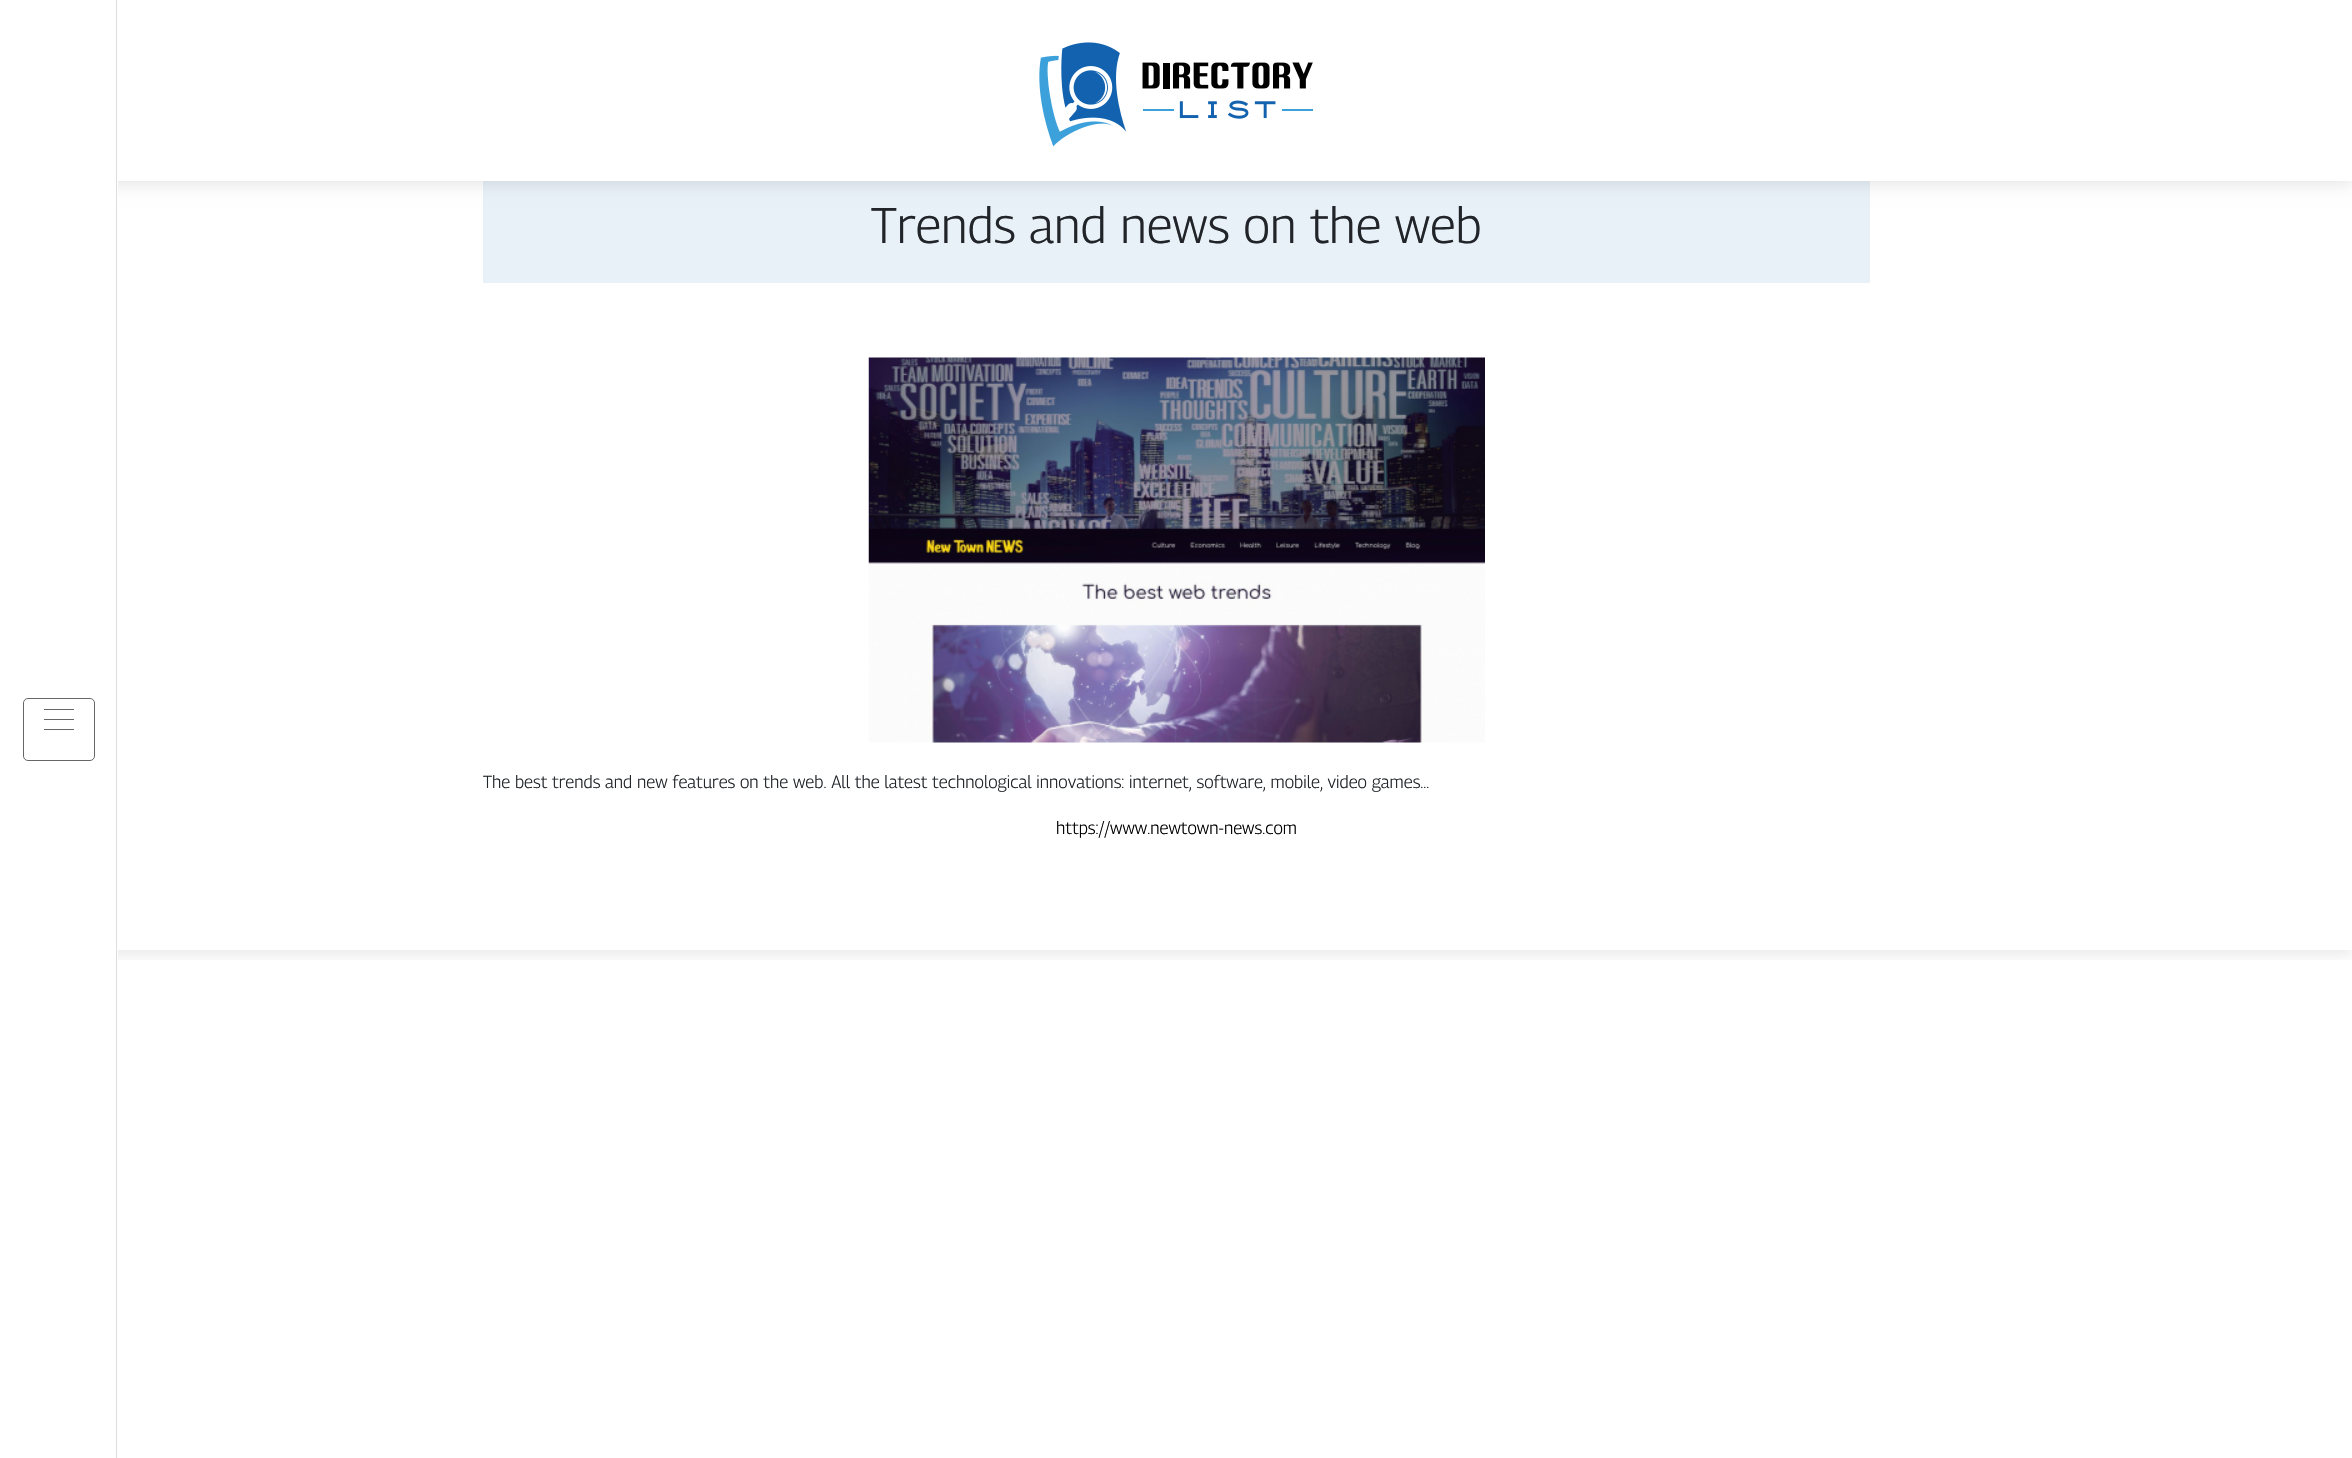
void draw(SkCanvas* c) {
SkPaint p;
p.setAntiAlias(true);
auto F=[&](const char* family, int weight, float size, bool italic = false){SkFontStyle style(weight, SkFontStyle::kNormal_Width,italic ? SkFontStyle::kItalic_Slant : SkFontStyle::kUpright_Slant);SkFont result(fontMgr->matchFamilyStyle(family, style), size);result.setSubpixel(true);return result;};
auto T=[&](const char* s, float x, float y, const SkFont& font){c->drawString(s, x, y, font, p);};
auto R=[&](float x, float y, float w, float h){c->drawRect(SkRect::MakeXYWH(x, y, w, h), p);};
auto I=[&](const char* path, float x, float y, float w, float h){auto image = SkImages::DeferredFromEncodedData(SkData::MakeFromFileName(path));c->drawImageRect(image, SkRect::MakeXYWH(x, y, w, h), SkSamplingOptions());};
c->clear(0xffffffff);
c->save();
c->clipRect(SkRect::MakeXYWH(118,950,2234,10));
p.setColor(0x1a000000);
p.setMaskFilter(SkMaskFilter::MakeBlur(kNormal_SkBlurStyle, 8));
c->drawRect(SkRect::MakeXYWH(0,153,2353,800),p);
p.setMaskFilter(nullptr);
c->restore();
p.setColor(0xffe8f0f8);
R(483,181,1387,102);
p.setColor(0x1a000000);
p.setMaskFilter(SkMaskFilter::MakeBlur(kNormal_SkBlurStyle, 8));
c->drawRect(SkRect::MakeXYWH(0,3,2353,181),p);
p.setMaskFilter(nullptr);
p.setColor(0xffffffff);
R(118,0,2234,181);
R(0,0,118,963);
p.setColor(0xffdddddd);
R(116,0,1,1458);
p.setStroke(true);
p.setStrokeWidth(1);
p.setColor(0xff666666);
c->drawRoundRect(SkRect::MakeXYWH(23.5,698.5,71,62),4.5,4.5,p);
p.setStroke(false);
R(44,709,30,1);
R(44,719,30,1);
R(44,729,30,1);
I("1.png",1039,42,274,105);
auto f1 = F("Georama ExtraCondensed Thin",100,50);
p.setColor(0xff212529);
T("Trends and news on the web",871,243,f1);
I("2.png",868,357,617,386);
auto f2 = F("Georama ExtraCondensed Thin",100,17.5);
T("The best trends and new features on the web. All the latest technological innovations: internet, software, mobile, video games...",483,788,f2);
p.setColor(0xff000000);
T("https://www.newtown-news.com",1056,834,f2);
}
